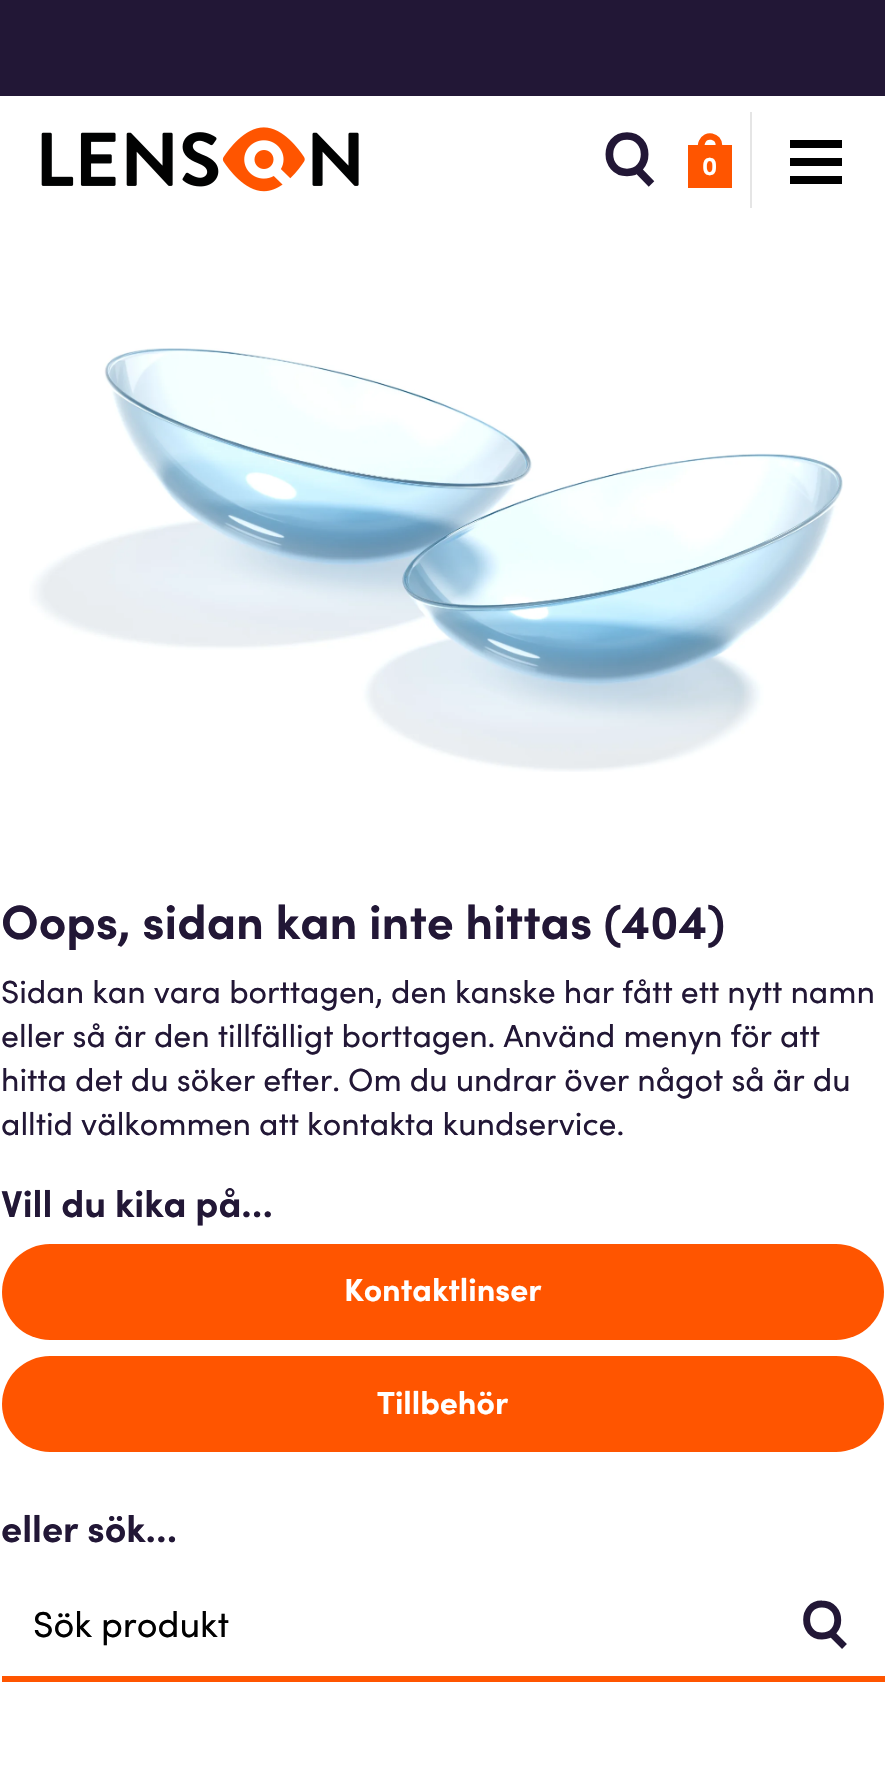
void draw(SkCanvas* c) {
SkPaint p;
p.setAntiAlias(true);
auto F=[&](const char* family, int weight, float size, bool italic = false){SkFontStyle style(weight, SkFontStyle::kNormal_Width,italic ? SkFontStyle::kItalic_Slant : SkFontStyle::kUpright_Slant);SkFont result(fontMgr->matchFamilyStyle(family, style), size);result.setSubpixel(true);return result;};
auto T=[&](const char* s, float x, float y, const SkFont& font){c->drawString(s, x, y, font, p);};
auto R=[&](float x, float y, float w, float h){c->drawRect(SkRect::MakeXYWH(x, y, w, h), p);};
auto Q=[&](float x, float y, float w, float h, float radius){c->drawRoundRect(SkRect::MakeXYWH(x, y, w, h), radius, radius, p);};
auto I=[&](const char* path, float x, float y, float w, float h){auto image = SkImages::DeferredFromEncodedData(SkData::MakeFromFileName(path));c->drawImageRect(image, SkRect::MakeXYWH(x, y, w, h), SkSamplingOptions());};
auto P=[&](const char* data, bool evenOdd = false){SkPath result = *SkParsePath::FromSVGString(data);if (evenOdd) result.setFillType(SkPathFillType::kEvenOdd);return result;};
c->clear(0xffffffff);
p.setColor(0xff221736);
R(0,0,885,96);
I("1.png",41,127,318,65);
p.setStroke(true);
p.setStrokeWidth(7.7);
c->drawPath(P("M627 172.5c-23.5 0-23.5-36.5 0-36.5c23.5 0 23.5 36.5 0 36.5zm9.5-4l15 15.5"),p);
p.setStrokeWidth(6.6);
p.setColor(0xffff5500);
c->drawPath(P("M719 145.5c0-10-13.5-12.5-17-3.5c-1.5 3-1 6.5-1 9.5h18z"),p);
p.setStroke(false);
R(688,145,44,43);
auto f1 = F("Sofia",700,26);
p.setColor(0xffffffff);
T("0",702,175,f1);
p.setColor(0xffe5e5e5);
R(750,112,2,96);
p.setColor(0xff000000);
R(790,140,52,8);
R(790,158,52,8);
R(790,176,52,8);
I("2.png",29,348,814,424);
auto f2 = F("Sofia",700,48);
p.setColor(0xff221736);
T("Oops, sidan kan inte hittas (404)",1,939,f2);
auto f3 = F("Sofia",400,32);
T("Sidan kan vara borttagen, den kanske har fått ett nytt namn",1,1003,f3);
T("eller så är den tillfälligt borttagen. Använd menyn för att",1,1047,f3);
T("hitta det du söker efter. Om du undrar över något så är du",1,1091,f3);
T("alltid välkommen att kontakta kundservice.",1,1135,f3);
auto f4 = F("Sofia",700,37.5);
T("Vill du kika på…",1,1217,f4);
p.setColor(0xffff5500);
Q(2,1244,882,96,48);
auto f5 = F("Sofia",700,32);
p.setColor(0xffffffff);
T("Kontaktlinser",344,1301,f5);
p.setColor(0xffff5500);
Q(2,1356,882,96,48);
p.setColor(0xffffffff);
T("Tillbehör",377,1414,f5);
p.setColor(0xff221736);
T("eller sök…",1,1542,f4);
p.setColor(0xffff5500);
R(2,1676,883,6);
auto f6 = F("Sofia",400,36);
p.setColor(0xff000000);
T("Sök produkt",33,1637,f6);
p.setStroke(true);
p.setStrokeWidth(6.9);
p.setColor(0xff221736);
c->drawPath(P("M822 1636c-20.5 0-20.5-32.5 0-32c21 0 21 32 0 32zm9-3l13.5 13.5"),p);
}
